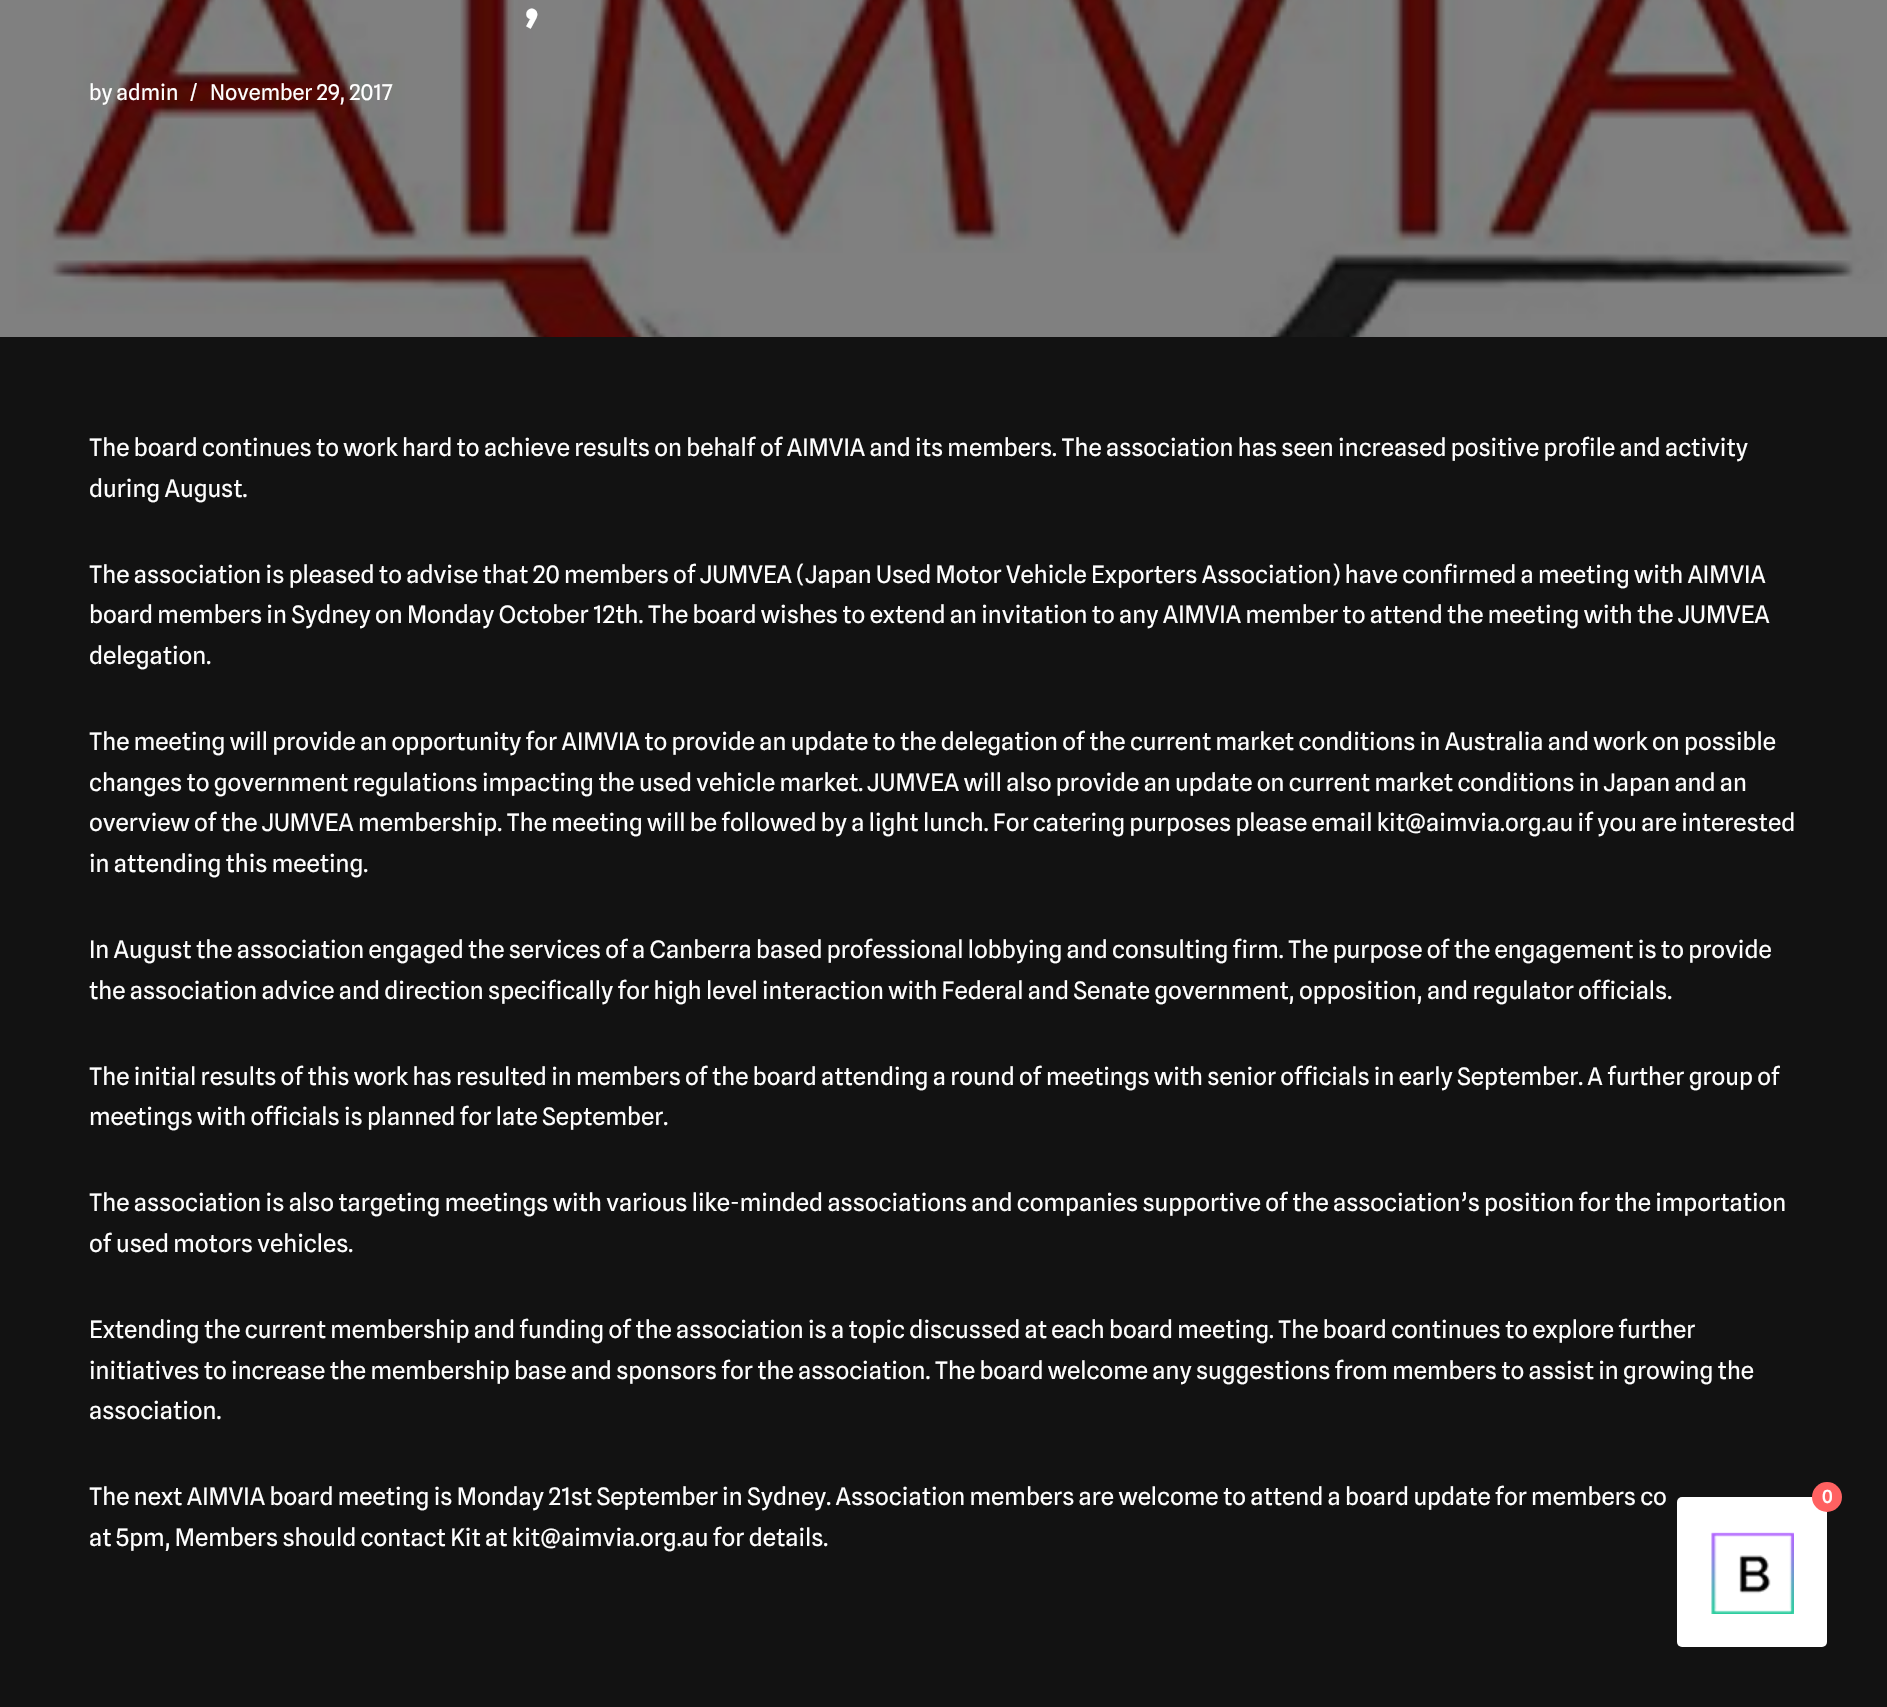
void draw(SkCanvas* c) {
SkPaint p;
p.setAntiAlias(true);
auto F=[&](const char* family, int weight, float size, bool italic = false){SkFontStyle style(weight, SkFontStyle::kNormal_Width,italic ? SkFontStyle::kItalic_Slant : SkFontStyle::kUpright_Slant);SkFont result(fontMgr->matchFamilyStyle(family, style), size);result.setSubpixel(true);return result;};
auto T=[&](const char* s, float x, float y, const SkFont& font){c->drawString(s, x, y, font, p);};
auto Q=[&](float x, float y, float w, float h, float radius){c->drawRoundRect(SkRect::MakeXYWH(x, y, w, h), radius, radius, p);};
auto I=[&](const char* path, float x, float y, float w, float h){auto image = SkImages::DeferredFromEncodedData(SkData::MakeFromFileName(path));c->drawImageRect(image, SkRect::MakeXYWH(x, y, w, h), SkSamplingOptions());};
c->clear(0xff121212);
I("1.png",0,0,1887,337);
auto f1 = F("Outfit",700,60);
p.setColor(0xffffffff);
T(",",523,19,f1);
auto f2 = F("Spline Sans",400,21.5);
T("by admin",89,100,f2);
T("/",190,100,f2);
T("November 29, 2017",210,100,f2);
auto f3 = F("Spline Sans",400,24);
T("The board continues to work hard to achieve results on behalf of AIMVIA and its members. The association has seen increased positive profile and activity",89,456,f3);
T("during August.",89,497,f3);
T("The association is pleased to advise that 20 members of JUMVEA (Japan Used Motor Vehicle Exporters Association) have confirmed a meeting with AIMVIA",89,583,f3);
T("board members in Sydney on Monday October 12th. The board wishes to extend an invitation to any AIMVIA member to attend the meeting with the JUMVEA",89,623,f3);
T("delegation.",89,664,f3);
T("The meeting will provide an opportunity for AIMVIA to provide an update to the delegation of the current market conditions in Australia and work on possible",89,750,f3);
T("changes to government regulations impacting the used vehicle market. JUMVEA will also provide an update on current market conditions in Japan and an",89,791,f3);
T("overview of the JUMVEA membership. The meeting will be followed by a light lunch. For catering purposes please email kit@aimvia.org.au if you are interested",89,831,f3);
T("in attending this meeting.",89,872,f3);
T("In August the association engaged the services of a Canberra based professional lobbying and consulting firm. The purpose of the engagement is to provide",89,958,f3);
T("the association advice and direction specifically for high level interaction with Federal and Senate government, opposition, and regulator officials.",89,999,f3);
T("The initial results of this work has resulted in members of the board attending a round of meetings with senior officials in early September. A further group of",89,1085,f3);
T("meetings with officials is planned for late September.",89,1125,f3);
T("The association is also targeting meetings with various like-minded associations and companies supportive of the association’s position for the importation",89,1211,f3);
T("of used motors vehicles.",89,1252,f3);
T("Extending the current membership and funding of the association is a topic discussed at each board meeting. The board continues to explore further",89,1338,f3);
T("initiatives to increase the membership base and sponsors for the association. The board welcome any suggestions from members to assist in growing the",89,1379,f3);
T("association.",89,1419,f3);
T("The next AIMVIA board meeting is Monday 21st September in Sydney. Association members are welcome to attend a board update for members co",89,1505,f3);
T("at 5pm, Members should contact Kit at kit@aimvia.org.au for details.",89,1546,f3);
Q(1677,1497,150,150,5);
p.setColor(0xffff6161);
c->drawCircle(1827,1497,15,p);
auto f4 = F("Spline Sans",500,18);
p.setColor(0xffffffff);
T("0",1822,1503,f4);
I("2.png",1711,1532,83,82);
}
